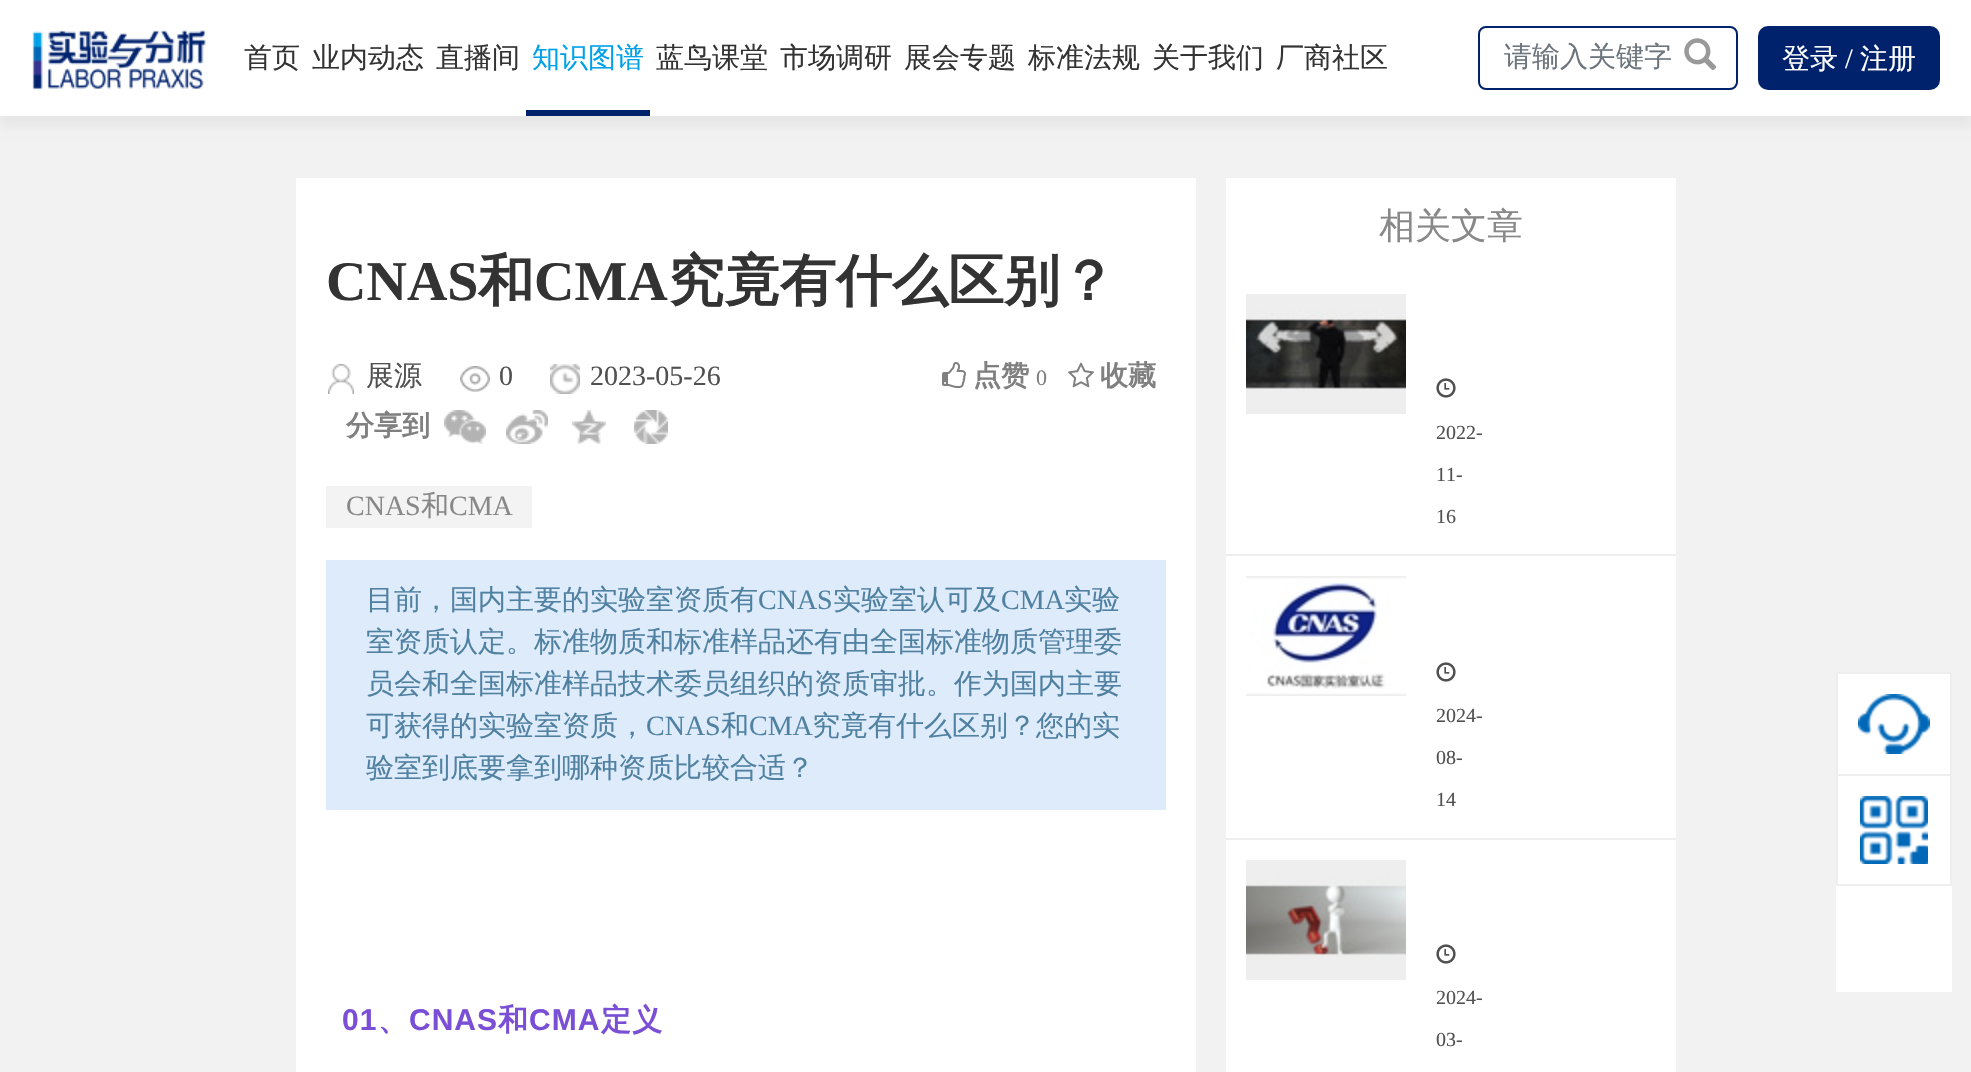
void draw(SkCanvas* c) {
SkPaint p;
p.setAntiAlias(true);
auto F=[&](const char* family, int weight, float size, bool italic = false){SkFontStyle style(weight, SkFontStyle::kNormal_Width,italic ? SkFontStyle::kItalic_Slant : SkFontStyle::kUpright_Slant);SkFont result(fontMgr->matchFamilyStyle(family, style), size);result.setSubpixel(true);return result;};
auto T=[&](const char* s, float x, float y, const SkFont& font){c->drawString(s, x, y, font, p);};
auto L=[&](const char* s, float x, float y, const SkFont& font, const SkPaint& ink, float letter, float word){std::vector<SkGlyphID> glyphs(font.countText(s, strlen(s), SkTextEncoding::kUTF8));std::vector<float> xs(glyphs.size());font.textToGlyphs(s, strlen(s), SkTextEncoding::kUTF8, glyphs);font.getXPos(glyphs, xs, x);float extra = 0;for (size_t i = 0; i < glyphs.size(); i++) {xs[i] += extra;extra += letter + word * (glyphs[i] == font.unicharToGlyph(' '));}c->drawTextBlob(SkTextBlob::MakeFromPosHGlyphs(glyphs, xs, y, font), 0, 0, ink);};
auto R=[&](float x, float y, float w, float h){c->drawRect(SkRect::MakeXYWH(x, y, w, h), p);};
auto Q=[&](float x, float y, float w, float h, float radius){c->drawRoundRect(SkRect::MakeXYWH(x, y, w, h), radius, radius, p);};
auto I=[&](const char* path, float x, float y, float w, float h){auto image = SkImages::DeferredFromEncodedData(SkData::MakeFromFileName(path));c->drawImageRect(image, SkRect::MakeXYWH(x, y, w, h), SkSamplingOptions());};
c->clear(0xfff2f2f2);
p.setColor(0x0d000000);
p.setMaskFilter(SkMaskFilter::MakeBlur(kNormal_SkBlurStyle, 5));
c->drawRect(SkRect::MakeXYWH(0,10,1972,116),p);
p.setMaskFilter(nullptr);
p.setColor(0xffffffff);
R(0,0,1971,116);
I("1.png",32,30,174,60);
auto f1 = F("WenQuanYi Zen Hei",500,28);
p.setColor(0xff333333);
T("首页",244,67,f1);
T("业内动态",312,67,f1);
T("直播间",436,67,f1);
p.setColor(0xff00226d);
R(526,110,124,6);
p.setColor(0xff00a1e9);
T("知识图谱",532,67,f1);
p.setColor(0xff333333);
T("蓝鸟课堂",656,67,f1);
T("市场调研",780,67,f1);
T("展会专题",904,67,f1);
T("标准法规",1028,67,f1);
T("关于我们",1152,67,f1);
T("厂商社区",1276,67,f1);
p.setStroke(true);
p.setStrokeWidth(2);
p.setColor(0xff00226d);
c->drawRoundRect(SkRect::MakeXYWH(1479,27,258,62),7,7,p);
p.setStroke(false);
p.setColor(0xff6c757d);
T("请输入关键字",1504,66,f1);
I("2.png",1684,38,33,33);
p.setColor(0xff00226d);
Q(1758,26,182,64,10);
p.setColor(0xffffffff);
T("登录",1782,68,f1);
auto f2 = F("Liberation Serif",400,28);
T("/",1845,68,f2);
T("注册",1860,68,f1);
R(296,178,900,894);
auto f3 = F("Liberation Serif",700,56);
p.setColor(0xff333333);
T("CNAS",326,300,f3);
auto f4 = F("WenQuanYi Zen Hei",700,56);
T("和",478,300,f4);
T("CMA",534,300,f3);
T("究竟有什么区别？",668,300,f4);
I("3.png",328,364,26,30);
p.setColor(0xff505050);
T("展源",366,385,f1);
I("4.png",460,366,30,26);
T("0",499,385,f2);
I("5.png",550,364,30,30);
T("2023-05-26",590,385,f2);
I("6.png",942,362,24,26);
auto f5 = F("WenQuanYi Zen Hei",700,28);
p.setColor(0xff808080);
T("点赞",973,385,f5);
auto f6 = F("Liberation Serif",400,22);
T("0",1036,385,f6);
I("7.png",1068,362,26,26);
T("收藏",1100,385,f5);
T("分享到",346,435,f5);
I("8.png",444,410,42,34);
I("9.png",506,410,42,34);
I("10.png",572,410,34,34);
I("11.png",634,410,34,34);
p.setColor(0xfff3f3f3);
R(326,486,206,42);
p.setColor(0xff888888);
T("CNAS",346,515,f2);
T("和",421,515,f1);
T("CMA",449,515,f2);
p.setColor(0xffddebfb);
R(326,560,840,250);
p.setColor(0xff5081a1);
T("目前，国内主要的实验室资质有",366,609,f1);
T("CNAS",758,609,f2);
T("实验室认可及",833,609,f1);
T("CMA",1001,609,f2);
T("实验",1064,609,f1);
T("室资质认定。标准物质和标准样品还有由全国标准物质管理委",366,651,f1);
T("员会和全国标准样品技术委员组织的资质审批。作为国内主要",366,693,f1);
T("可获得的实验室资质，",366,735,f1);
T("CNAS",646,735,f2);
T("和",721,735,f1);
T("CMA",749,735,f2);
T("究竟有什么区别？您的实",812,735,f1);
T("验室到底要拿到哪种资质比较合适？",366,777,f1);
auto f7 = F("Liberation Sans",700,30);
p.setColor(0xff7a4fd6);
L("01",342,1030,f7,p,1,0);
auto f8 = F("WenQuanYi Zen Hei",700,30);
L("、",378,1030,f8,p,1,0);
L("CNAS",409,1030,f7,p,1,0);
L("和",498,1030,f8,p,1,0);
L("CMA",529,1030,f7,p,1,0);
L("定义",601,1030,f8,p,1,0);
p.setColor(0xffffffff);
R(1226,178,450,894);
auto f9 = F("WenQuanYi Zen Hei",500,36);
p.setColor(0xff888888);
T("相关文章",1379,238,f9);
I("12.png",1246,294,160,120);
I("13.png",1436,378,20,20);
auto f10 = F("Liberation Serif",400,20);
p.setColor(0xff505050);
T("2022-",1436,439,f10);
T("11-",1436,481,f10);
T("16",1436,523,f10);
p.setColor(0xffeeeeee);
R(1226,554,450,2);
I("14.png",1246,576,160,120);
I("13.png",1436,662,20,20);
p.setColor(0xff505050);
T("2024-",1436,722,f10);
T("08-",1436,764,f10);
T("14",1436,806,f10);
p.setColor(0xffeeeeee);
R(1226,838,450,2);
I("15.png",1246,860,160,120);
I("13.png",1436,944,20,20);
p.setColor(0xff505050);
T("2024-",1436,1004,f10);
T("03-",1436,1046,f10);
p.setColor(0xffffffff);
R(1836,886,116,106);
c->drawRect(SkRect::MakeXYWH(1837,673,114,102),p);
p.setStroke(true);
p.setColor(0xffeeeeee);
c->drawRect(SkRect::MakeXYWH(1837,673,114,102),p);
I("16.png",1858,694,72,60);
p.setStroke(false);
p.setColor(0xffffffff);
c->drawRect(SkRect::MakeXYWH(1837,775,114,110),p);
p.setStroke(true);
p.setColor(0xffeeeeee);
c->drawRect(SkRect::MakeXYWH(1837,775,114,110),p);
I("17.png",1860,796,68,68);
}
